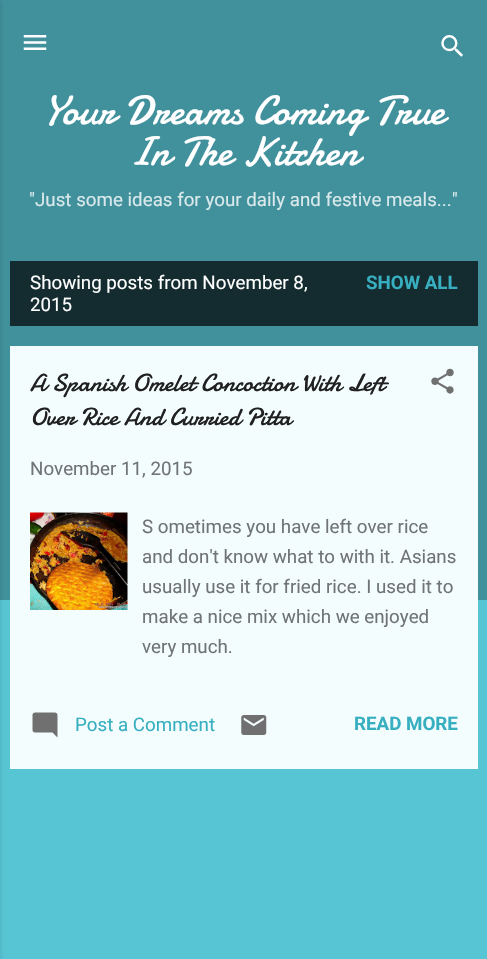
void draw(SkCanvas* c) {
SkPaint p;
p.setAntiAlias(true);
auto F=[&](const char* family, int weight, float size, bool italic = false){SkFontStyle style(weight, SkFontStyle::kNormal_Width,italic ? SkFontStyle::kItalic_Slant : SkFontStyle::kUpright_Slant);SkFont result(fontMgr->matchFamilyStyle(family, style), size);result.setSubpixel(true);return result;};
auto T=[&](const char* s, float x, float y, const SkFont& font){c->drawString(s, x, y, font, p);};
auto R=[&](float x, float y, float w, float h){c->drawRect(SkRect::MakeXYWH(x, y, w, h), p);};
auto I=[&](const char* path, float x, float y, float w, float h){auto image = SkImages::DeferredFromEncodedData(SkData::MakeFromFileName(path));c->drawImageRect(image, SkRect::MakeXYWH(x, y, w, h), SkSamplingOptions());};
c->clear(0xff58c5d5);
p.setColor(0xff41919d);
R(0,0,487,600);
p.setColor(0x1a000000);
p.setMaskFilter(SkMaskFilter::MakeBlur(kNormal_SkBlurStyle, 2));
c->drawRect(SkRect::MakeXYWH(-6,1,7,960),p);
p.setMaskFilter(nullptr);
I("1.png",23,35,24,15);
I("2.png",441,35,22,22);
auto f1 = F("Damion",400,41.25);
p.setColor(0xffffffff);
T("Your Dreams Coming True",43,124,f1);
T("In The Kitchen",129,165,f1);
auto f2 = F("Roboto",400,18.75);
p.setColor(0xffd9e9eb);
T("\"Just some ideas for your daily and festive meals...\"",29,206,f2);
p.setColor(0xff142c2f);
R(10,261,468,65);
p.setColor(0xffffffff);
T("Showing posts from November 8,",30,289,f2);
T("2015",30,311,f2);
auto f3 = F("Roboto",700,18.75);
p.setColor(0xff37afc0);
T("SHOW ALL",366,289,f3);
p.setColor(0xfff3fdfe);
R(10,346,468,423);
auto f4 = F("Damion",400,25);
p.setColor(0xff212121);
T("A Spanish Omelet Concoction With Left",30,391,f4);
T("Over Rice And Curried Pitta",30,425,f4);
I("3.png",431,368,23,26);
p.setColor(0xff707475);
T("November 11, 2015",30,475,f2);
I("4.png",30,512,98,98);
T("S ometimes you have left over rice",142,533,f2);
T("and don't know what to with it. Asians",142,563,f2);
T("usually use it for fried rice. I used it to",142,593,f2);
T("make a nice mix which we enjoyed",142,623,f2);
T("very much.",142,653,f2);
I("5.png",32,712,26,26);
p.setColor(0xff37afc0);
T("Post a Comment",75,731,f2);
I("6.png",241,715,26,20);
T("READ MORE",354,730,f3);
}
